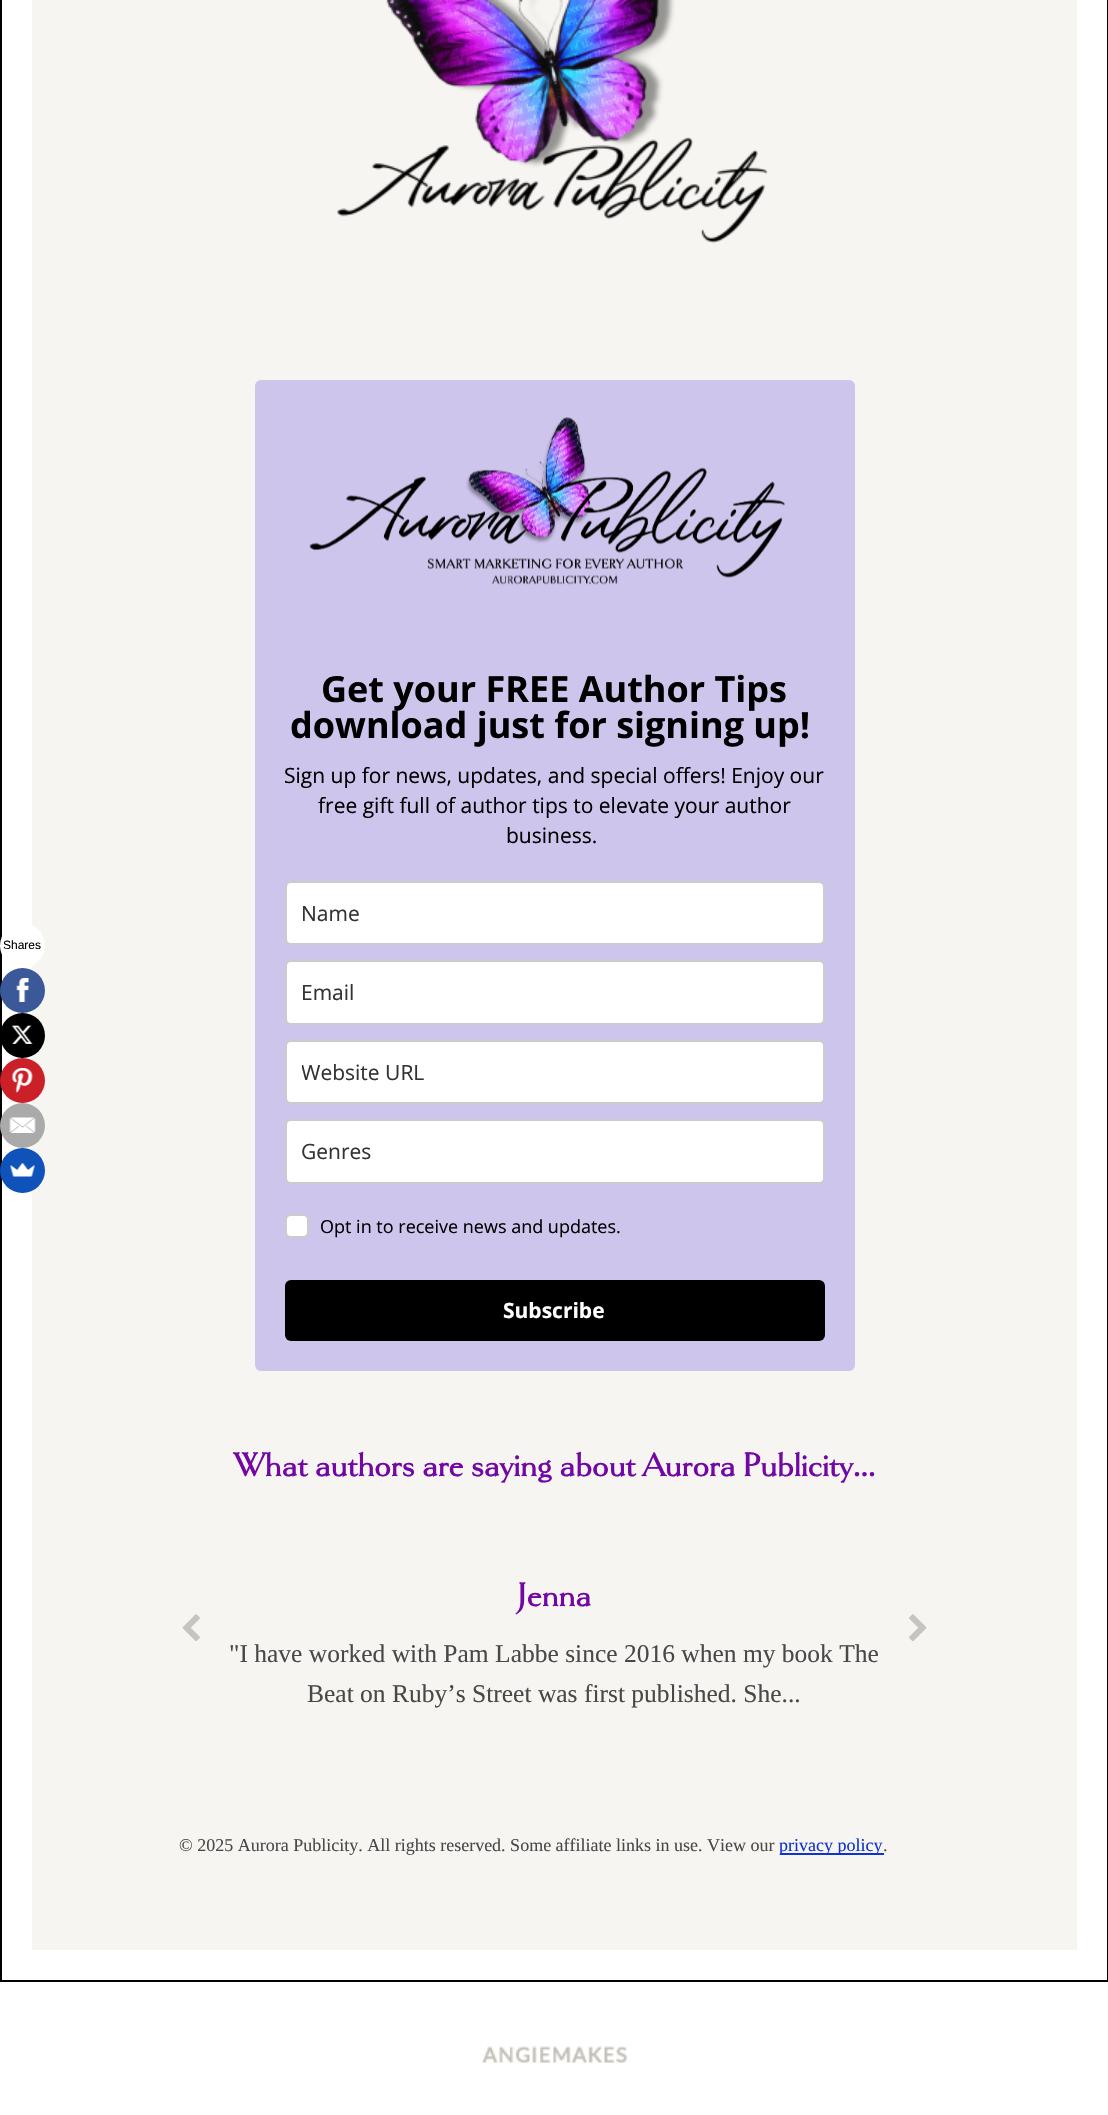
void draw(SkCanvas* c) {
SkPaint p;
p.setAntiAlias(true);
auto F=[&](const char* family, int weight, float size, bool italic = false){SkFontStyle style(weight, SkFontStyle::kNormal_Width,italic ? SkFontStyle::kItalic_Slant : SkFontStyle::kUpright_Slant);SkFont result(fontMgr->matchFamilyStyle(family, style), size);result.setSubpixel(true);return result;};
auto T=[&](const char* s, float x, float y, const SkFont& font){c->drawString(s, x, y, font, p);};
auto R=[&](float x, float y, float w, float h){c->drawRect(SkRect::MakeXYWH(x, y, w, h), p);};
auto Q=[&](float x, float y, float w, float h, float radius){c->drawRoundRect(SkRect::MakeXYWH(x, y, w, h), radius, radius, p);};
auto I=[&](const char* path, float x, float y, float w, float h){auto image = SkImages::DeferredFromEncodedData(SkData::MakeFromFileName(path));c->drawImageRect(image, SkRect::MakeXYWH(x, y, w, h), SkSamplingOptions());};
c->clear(0xffffffff);
p.setStroke(true);
p.setStrokeWidth(2);
p.setColor(0xff000000);
c->drawRect(SkRect::MakeXYWH(1,-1,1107,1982),p);
p.setStroke(false);
p.setColor(0xfff6f5f1);
R(32,0,1045,1950);
p.setColor(0xffffffff);
c->drawCircle(22.5,945.5,22.5,p);
auto f1 = F("Liberation Sans",400,12);
p.setColor(0xff000000);
T("Shares",3,949,f1);
p.setColor(0xff3b5998);
c->drawCircle(22.5,990.5,22.5,p);
I("1.png",16,978,13,24);
p.setColor(0xff000000);
c->drawCircle(22.5,1035.5,22.5,p);
I("2.png",11,1025,22,19);
p.setColor(0xffcb2027);
c->drawCircle(22.5,1080.5,22.5,p);
I("3.png",12,1068,21,25);
p.setColor(0xffaaaaaa);
c->drawCircle(22.5,1125.5,22.5,p);
I("4.png",9,1117,27,16);
p.setColor(0xff0f52ba);
c->drawCircle(22.5,1170.5,22.5,p);
I("5.png",10,1163,25,14);
I("6.png",337,0,431,244);
p.setColor(0xffcdc5ec);
Q(255,380,600,991,6);
I("7.png",309,417,476,168);
auto f2 = F("Open Sans",700,36);
p.setColor(0xff000000);
T("Get your FREE Author Tips",321,702,f2);
T("download just for signing up!",290,738,f2);
auto f3 = F("Open Sans",400,21);
T("Sign up for news, updates, and special offers! Enjoy our",284,783,f3);
T("free gift full of author tips to elevate your author",318,813,f3);
T("business.",506,843,f3);
p.setColor(0xffffffff);
c->drawRoundRect(SkRect::MakeXYWH(286,882,538,62),5,5,p);
p.setStroke(true);
p.setColor(0xffcccccc);
c->drawRoundRect(SkRect::MakeXYWH(286,882,538,62),5,5,p);
p.setStroke(false);
p.setColor(0xff333333);
T("Name",301,921,f3);
p.setColor(0xffffffff);
c->drawRoundRect(SkRect::MakeXYWH(286,961,538,63),5,5,p);
p.setStroke(true);
p.setColor(0xffcccccc);
c->drawRoundRect(SkRect::MakeXYWH(286,961,538,63),5,5,p);
p.setStroke(false);
p.setColor(0xff333333);
T("Email",301,1000,f3);
p.setColor(0xffffffff);
c->drawRoundRect(SkRect::MakeXYWH(286,1041,538,62),5,5,p);
p.setStroke(true);
p.setColor(0xffcccccc);
c->drawRoundRect(SkRect::MakeXYWH(286,1041,538,62),5,5,p);
c->save();
c->clipRect(SkRect::MakeXYWH(302,1058,507,28));
p.setStroke(false);
p.setColor(0xff333333);
T("Website URL",301,1080,f3);
c->restore();
p.setColor(0xffffffff);
c->drawRoundRect(SkRect::MakeXYWH(286,1120,538,63),5,5,p);
p.setStroke(true);
p.setColor(0xffcccccc);
c->drawRoundRect(SkRect::MakeXYWH(286,1120,538,63),5,5,p);
p.setStroke(false);
p.setColor(0xff333333);
T("Genres",301,1159,f3);
p.setColor(0xffffffff);
c->drawRoundRect(SkRect::MakeXYWH(286,1215,22,22),5,5,p);
p.setStroke(true);
p.setColor(0xffcccccc);
c->drawRoundRect(SkRect::MakeXYWH(286,1215,22,22),5,5,p);
auto f4 = F("Open Sans",400,18);
p.setStroke(false);
p.setColor(0xff000000);
T("Opt in to receive news and updates.",320,1233,f4);
Q(285,1280,540,61,6);
auto f5 = F("Open Sans",700,21);
p.setColor(0xffffffff);
T("Subscribe",503,1318,f5);
auto f6 = F("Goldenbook",700,34.5);
p.setColor(0xff7207a5);
T("What authors are saying about Aurora Publicity...",234,1476,f6);
T("Jenna",517,1606,f6);
auto f7 = F("Liberation Serif",400,25.5);
p.setColor(0xff494848);
T("\"I have worked with Pam Labbe since 2016 when my book The",229,1662,f7);
T("Beat on Ruby’s Street was first published. She...",307,1702,f7);
I("8.png",182,1614,18,27);
I("9.png",909,1614,18,27);
auto f8 = F("Liberation Serif",400,18);
T("© 2025 Aurora Publicity. All rights reserved. Some affiliate links in use. View our",179,1851,f8);
p.setColor(0xff1132cf);
R(780,1853,104,2);
T("privacy policy",779,1851,f8);
p.setColor(0xff494848);
T(".",883,1851,f8);
I("10.png",481,2046,146,17);
}
